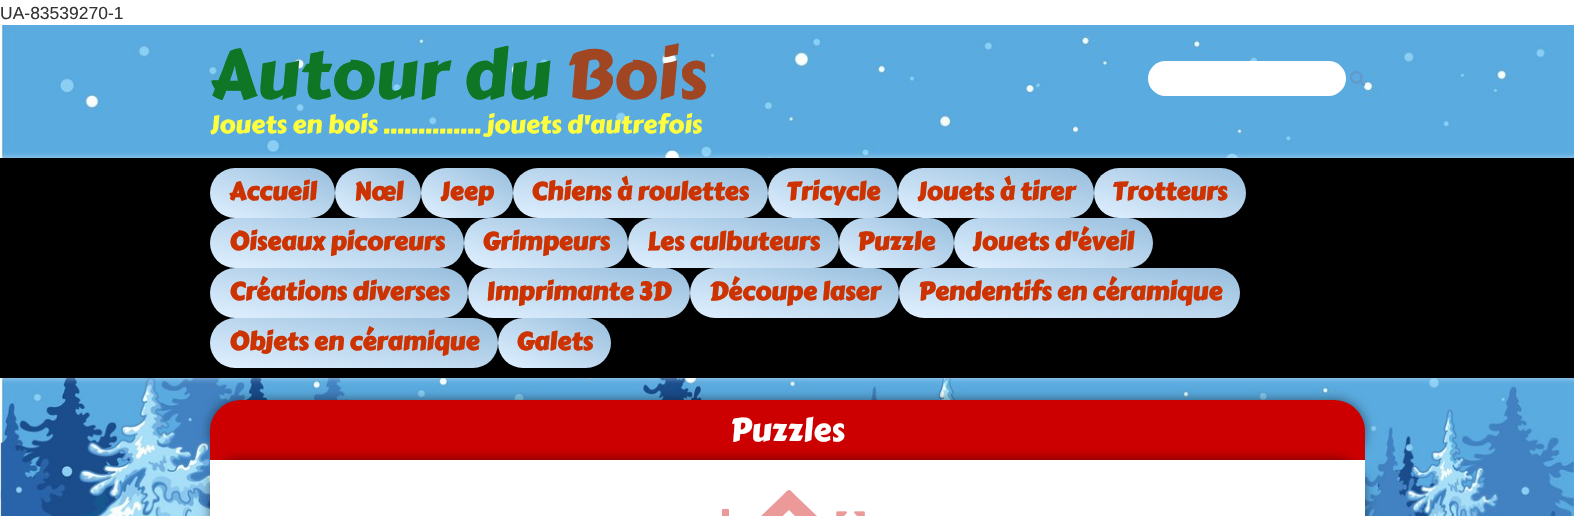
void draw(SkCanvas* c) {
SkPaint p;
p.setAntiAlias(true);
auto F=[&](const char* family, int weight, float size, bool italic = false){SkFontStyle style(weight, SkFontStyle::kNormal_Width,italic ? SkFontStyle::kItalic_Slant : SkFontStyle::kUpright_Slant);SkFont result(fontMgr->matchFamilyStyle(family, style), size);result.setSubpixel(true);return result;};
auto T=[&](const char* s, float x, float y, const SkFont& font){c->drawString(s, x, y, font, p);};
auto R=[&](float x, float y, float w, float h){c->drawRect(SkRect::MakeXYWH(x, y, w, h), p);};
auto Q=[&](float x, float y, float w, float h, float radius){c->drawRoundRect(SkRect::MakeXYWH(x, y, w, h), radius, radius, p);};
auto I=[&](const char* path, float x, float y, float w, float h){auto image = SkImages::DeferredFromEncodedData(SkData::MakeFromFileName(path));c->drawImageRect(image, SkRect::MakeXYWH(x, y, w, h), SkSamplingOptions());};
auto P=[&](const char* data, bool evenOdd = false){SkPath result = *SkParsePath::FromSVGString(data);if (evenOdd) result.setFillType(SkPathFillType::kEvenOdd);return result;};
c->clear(0xffffffff);
auto f1 = F("Liberation Sans",400,17.5);
p.setColor(0xff333333);
T("UA-83539270-1",0,19,f1);
I("1.png",0,25,1574,491);
auto f2 = F("Carter One",400,68.75);
p.setColor(0xff0f7625);
T("Autour du",210,98,f2);
p.setColor(0xffa04622);
T("Bois",565,98,f2);
auto f3 = F("Carter One",400,25);
p.setColor(0xffffff3d);
T("Jouets en bois .............. jouets d'autrefois",210,133,f3);
p.setColor(0xffffffff);
Q(1148,61,198,35,17.5);
I("2.png",1350,71,15,15);
p.setColor(0x80ffffff);
p.setMaskFilter(SkMaskFilter::MakeBlur(kNormal_SkBlurStyle, 3));
c->drawRoundRect(SkRect::MakeXYWH(-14,158,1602,220),5,5,p);
p.setMaskFilter(nullptr);
p.setColor(0xff000000);
R(0,158,1574,220);
{
const SkColor colors[] = {0xffe0f0ff,0xff97bedd};
const float stops[] = {0,1};
const SkPoint ends[] = {{255,236}, {290,149}};
p.setShader(SkGradientShader::MakeLinear(ends, colors, stops, 2, SkTileMode::kClamp));
p.setAlpha(255);
}
Q(210,168,125,50,25);
auto f4 = F("Carter One",700,25);
p.setShader(nullptr);
p.setColor(0xffcc3300);
T("Accueil",229,200,f4);
{
const SkColor colors[] = {0xffe0f0ff,0xff97bedd};
const float stops[] = {0,1};
const SkPoint ends[] = {{356,230}, {400,155}};
p.setShader(SkGradientShader::MakeLinear(ends, colors, stops, 2, SkTileMode::kClamp));
p.setAlpha(255);
}
Q(335,168,86,50,25);
p.setShader(nullptr);
p.setColor(0xffcc3300);
T("Nœl",354,200,f4);
{
const SkColor colors[] = {0xffe0f0ff,0xff97bedd};
const float stops[] = {0,1};
const SkPoint ends[] = {{446,231}, {488,154}};
p.setShader(SkGradientShader::MakeLinear(ends, colors, stops, 2, SkTileMode::kClamp));
p.setAlpha(255);
}
Q(421,168,92,50,25);
p.setShader(nullptr);
p.setColor(0xffcc3300);
T("Jeep",440,200,f4);
{
const SkColor colors[] = {0xffe0f0ff,0xff97bedd};
const float stops[] = {0,1};
const SkPoint ends[] = {{631,241}, {649,144}};
p.setShader(SkGradientShader::MakeLinear(ends, colors, stops, 2, SkTileMode::kClamp));
p.setAlpha(255);
}
Q(513,168,255,50,25);
p.setShader(nullptr);
p.setColor(0xffcc3300);
T("Chiens à roulettes",531,200,f4);
{
const SkColor colors[] = {0xffe0f0ff,0xff97bedd};
const float stops[] = {0,1};
const SkPoint ends[] = {{816,236}, {849,149}};
p.setShader(SkGradientShader::MakeLinear(ends, colors, stops, 2, SkTileMode::kClamp));
p.setAlpha(255);
}
Q(768,168,130,50,25);
p.setShader(nullptr);
p.setColor(0xffcc3300);
T("Tricycle",786,200,f4);
{
const SkColor colors[] = {0xffe0f0ff,0xff97bedd};
const float stops[] = {0,1};
const SkPoint ends[] = {{984,239}, {1008,146}};
p.setShader(SkGradientShader::MakeLinear(ends, colors, stops, 2, SkTileMode::kClamp));
p.setAlpha(255);
}
Q(898,168,196,50,25);
p.setShader(nullptr);
p.setColor(0xffcc3300);
T("Jouets à tirer",917,200,f4);
{
const SkColor colors[] = {0xffe0f0ff,0xff97bedd};
const float stops[] = {0,1};
const SkPoint ends[] = {{1155,238}, {1185,147}};
p.setShader(SkGradientShader::MakeLinear(ends, colors, stops, 2, SkTileMode::kClamp));
p.setAlpha(255);
}
Q(1094,168,152,50,25);
p.setShader(nullptr);
p.setColor(0xffcc3300);
T("Trotteurs",1112,200,f4);
{
const SkColor colors[] = {0xffe0f0ff,0xff97bedd};
const float stops[] = {0,1};
const SkPoint ends[] = {{327,291}, {346,194}};
p.setShader(SkGradientShader::MakeLinear(ends, colors, stops, 2, SkTileMode::kClamp));
p.setAlpha(255);
}
Q(210,218,254,50,25);
p.setShader(nullptr);
p.setColor(0xffcc3300);
T("Oiseaux picoreurs",229,250,f4);
{
const SkColor colors[] = {0xffe0f0ff,0xff97bedd};
const float stops[] = {0,1};
const SkPoint ends[] = {{532,288}, {560,197}};
p.setShader(SkGradientShader::MakeLinear(ends, colors, stops, 2, SkTileMode::kClamp));
p.setAlpha(255);
}
Q(464,218,164,50,25);
p.setShader(nullptr);
p.setColor(0xffcc3300);
T("Grimpeurs",482,250,f4);
{
const SkColor colors[] = {0xffe0f0ff,0xff97bedd};
const float stops[] = {0,1};
const SkPoint ends[] = {{722,290}, {744,195}};
p.setShader(SkGradientShader::MakeLinear(ends, colors, stops, 2, SkTileMode::kClamp));
p.setAlpha(255);
}
Q(628,218,211,50,25);
p.setShader(nullptr);
p.setColor(0xffcc3300);
T("Les culbuteurs",647,250,f4);
{
const SkColor colors[] = {0xffe0f0ff,0xff97bedd};
const float stops[] = {0,1};
const SkPoint ends[] = {{878,285}, {915,200}};
p.setShader(SkGradientShader::MakeLinear(ends, colors, stops, 2, SkTileMode::kClamp));
p.setAlpha(255);
}
Q(839,218,115,50,25);
p.setShader(nullptr);
p.setColor(0xffcc3300);
T("Puzzle",857,250,f4);
{
const SkColor colors[] = {0xffe0f0ff,0xff97bedd};
const float stops[] = {0,1};
const SkPoint ends[] = {{1041,290}, {1065,195}};
p.setShader(SkGradientShader::MakeLinear(ends, colors, stops, 2, SkTileMode::kClamp));
p.setAlpha(255);
}
Q(954,218,199,50,25);
p.setShader(nullptr);
p.setColor(0xffcc3300);
T("Jouets d'éveil",972,250,f4);
{
const SkColor colors[] = {0xffe0f0ff,0xff97bedd};
const float stops[] = {0,1};
const SkPoint ends[] = {{329,341}, {348,244}};
p.setShader(SkGradientShader::MakeLinear(ends, colors, stops, 2, SkTileMode::kClamp));
p.setAlpha(255);
}
Q(210,268,258,50,25);
p.setShader(nullptr);
p.setColor(0xffcc3300);
T("Créations diverses",229,300,f4);
{
const SkColor colors[] = {0xffe0f0ff,0xff97bedd};
const float stops[] = {0,1};
const SkPoint ends[] = {{568,340}, {589,245}};
p.setShader(SkGradientShader::MakeLinear(ends, colors, stops, 2, SkTileMode::kClamp));
p.setAlpha(255);
}
Q(468,268,222,50,25);
p.setShader(nullptr);
p.setColor(0xffcc3300);
T("Imprimante 3D",486,300,f4);
{
const SkColor colors[] = {0xffe0f0ff,0xff97bedd};
const float stops[] = {0,1};
const SkPoint ends[] = {{783,340}, {806,245}};
p.setShader(SkGradientShader::MakeLinear(ends, colors, stops, 2, SkTileMode::kClamp));
p.setAlpha(255);
}
Q(690,268,209,50,25);
p.setShader(nullptr);
p.setColor(0xffcc3300);
T("Découpe laser",709,300,f4);
{
const SkColor colors[] = {0xffe0f0ff,0xff97bedd};
const float stops[] = {0,1};
const SkPoint ends[] = {{1062,341}, {1077,244}};
p.setShader(SkGradientShader::MakeLinear(ends, colors, stops, 2, SkTileMode::kClamp));
p.setAlpha(255);
}
Q(899,268,341,50,25);
p.setShader(nullptr);
p.setColor(0xffcc3300);
T("Pendentifs en céramique",918,300,f4);
{
const SkColor colors[] = {0xffe0f0ff,0xff97bedd};
const float stops[] = {0,1};
const SkPoint ends[] = {{345,391}, {362,294}};
p.setShader(SkGradientShader::MakeLinear(ends, colors, stops, 2, SkTileMode::kClamp));
p.setAlpha(255);
}
Q(210,318,288,50,25);
p.setShader(nullptr);
p.setColor(0xffcc3300);
T("Objets en céramique",229,350,f4);
{
const SkColor colors[] = {0xffe0f0ff,0xff97bedd};
const float stops[] = {0,1};
const SkPoint ends[] = {{536,384}, {573,301}};
p.setShader(SkGradientShader::MakeLinear(ends, colors, stops, 2, SkTileMode::kClamp));
p.setAlpha(255);
}
Q(498,318,113,50,25);
p.setShader(nullptr);
p.setColor(0xffcc3300);
T("Galets",516,350,f4);
p.setColor(0x80000000);
p.setMaskFilter(SkMaskFilter::MakeBlur(kNormal_SkBlurStyle, 6));
c->drawRoundRect(SkRect::MakeXYWH(210,400,1155,60),31,31,p);
p.setMaskFilter(nullptr);
p.setColor(0xffcc0000);
c->drawPath(P("M241 400h1093c17 0 31 14 31 31v29h-1155v-29c0-17 14-31 31-31z"),p);
p.setColor(0x80000000);
p.setMaskFilter(SkMaskFilter::MakeBlur(kNormal_SkBlurStyle, 6));
c->drawRoundRect(SkRect::MakeXYWH(210,460,1155,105),31,31,p);
p.setMaskFilter(nullptr);
auto f5 = F("Carter One",400,32.5);
p.setColor(0xffffffff);
T("Puzzles",730,441,f5);
R(210,460,1155,56);
I("3.png",721,508,8,8);
p.setColor(0xffeb9999);
c->drawPath(P("M822 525c-8 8-7 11-15 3l-18-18l-19 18c-7 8-6 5-13-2c-4-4 0-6 4-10l21-20c8-8 6-8 14 0l21 20c0 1 8 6 5 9z"),p);
I("4.png",836,511,29,5);
}
